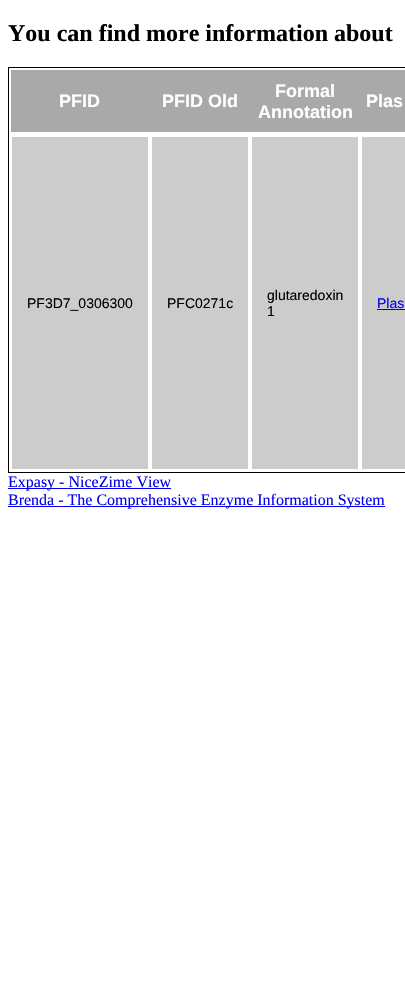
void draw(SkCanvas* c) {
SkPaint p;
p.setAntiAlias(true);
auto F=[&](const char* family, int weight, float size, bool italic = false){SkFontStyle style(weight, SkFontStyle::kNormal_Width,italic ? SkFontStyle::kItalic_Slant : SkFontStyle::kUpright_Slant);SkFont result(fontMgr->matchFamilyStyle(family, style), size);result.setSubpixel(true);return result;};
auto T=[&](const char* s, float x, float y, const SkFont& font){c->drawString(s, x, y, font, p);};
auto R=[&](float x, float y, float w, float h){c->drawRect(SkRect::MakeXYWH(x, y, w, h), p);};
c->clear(0xffffffff);
auto f1 = F("Liberation Serif",700,24);
p.setColor(0xff000000);
T("You can find more information about",8,41,f1);
p.setStroke(true);
p.setStrokeWidth(1);
c->drawRect(SkRect::MakeXYWH(8.5,67.5,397,405),p);
p.setStroke(false);
p.setColor(0xffa9a9a9);
R(11,70,394,62);
auto f2 = F("Liberation Sans",700,18);
p.setColor(0xffffffff);
T("PFID",59,107,f2);
T("PFID Old",162,107,f2);
T("Formal",275,97,f2);
T("Annotation",258,118,f2);
T("Plas",366,107,f2);
p.setColor(0xffcccccc);
R(12,137,136,332);
auto f3 = F("Liberation Sans",400,14);
p.setColor(0xff000000);
T("PF3D7_0306300",27,308,f3);
p.setColor(0xffcccccc);
R(152,137,96,332);
p.setColor(0xff000000);
T("PFC0271c",167,308,f3);
p.setColor(0xffcccccc);
R(252,137,106,332);
p.setColor(0xff000000);
T("glutaredoxin",267,300,f3);
T("1",267,316,f3);
p.setColor(0xffcccccc);
R(362,137,43,332);
p.setColor(0xff0000ee);
T("Plas",377,308,f3);
R(377,309,28,1);
R(8,488,163,1);
auto f4 = F("Liberation Serif",400,16);
T("Expasy - NiceZime View",8,487,f4);
R(8,506,377,1);
T("Brenda - The Comprehensive Enzyme Information System",8,505,f4);
}
